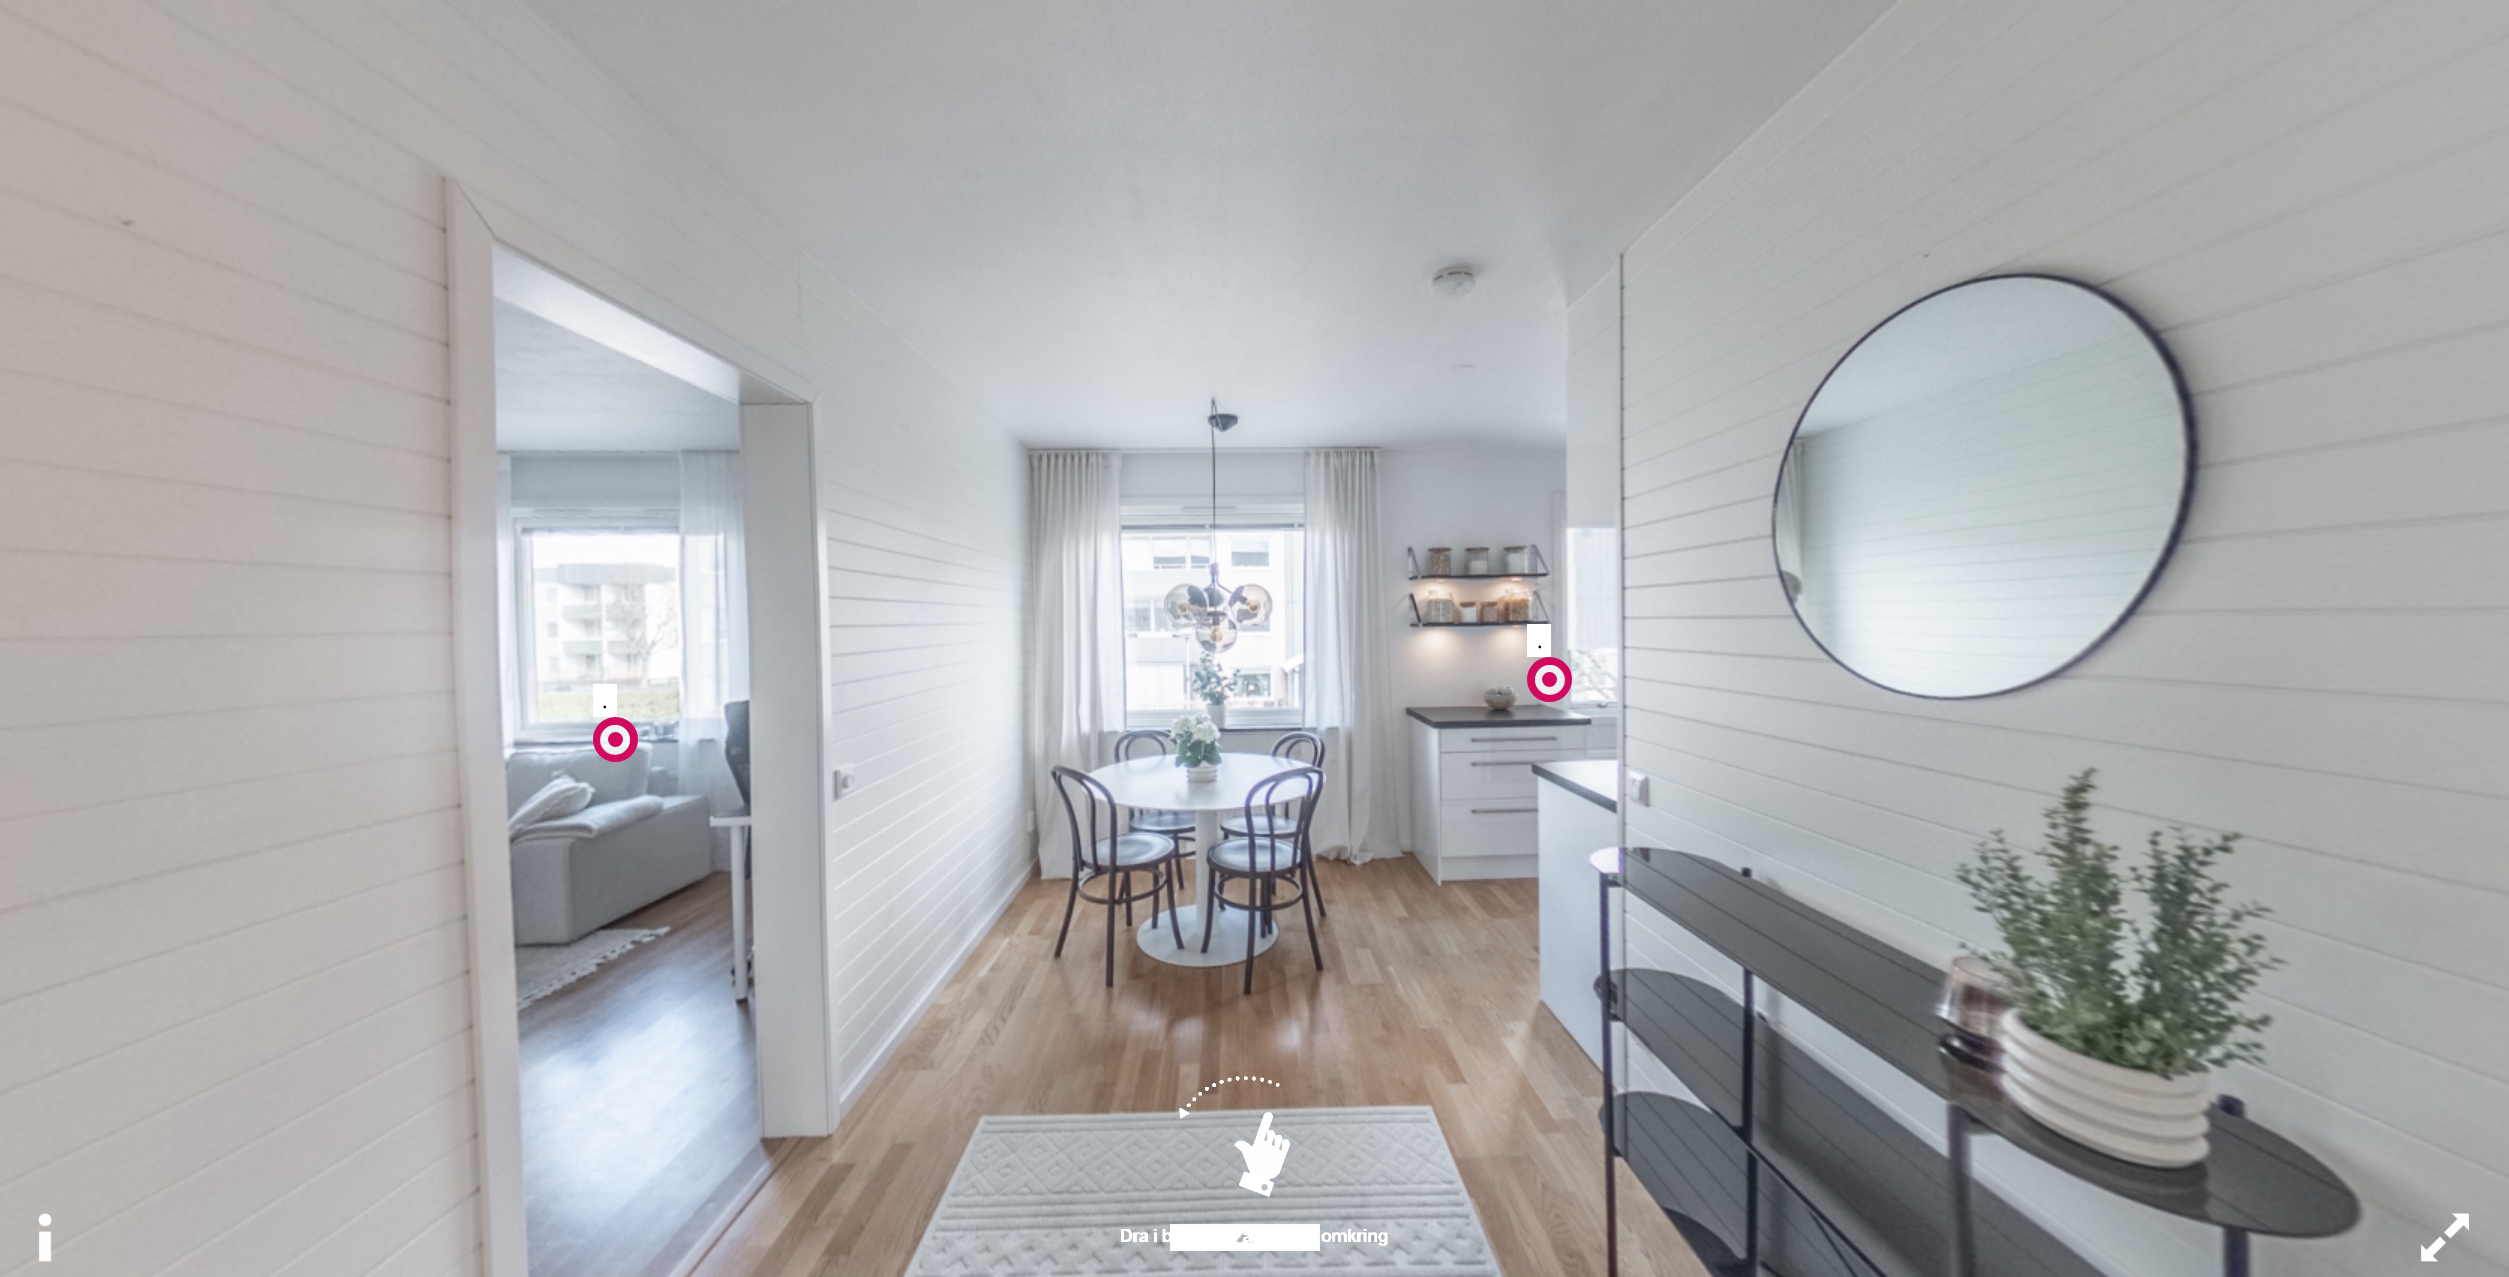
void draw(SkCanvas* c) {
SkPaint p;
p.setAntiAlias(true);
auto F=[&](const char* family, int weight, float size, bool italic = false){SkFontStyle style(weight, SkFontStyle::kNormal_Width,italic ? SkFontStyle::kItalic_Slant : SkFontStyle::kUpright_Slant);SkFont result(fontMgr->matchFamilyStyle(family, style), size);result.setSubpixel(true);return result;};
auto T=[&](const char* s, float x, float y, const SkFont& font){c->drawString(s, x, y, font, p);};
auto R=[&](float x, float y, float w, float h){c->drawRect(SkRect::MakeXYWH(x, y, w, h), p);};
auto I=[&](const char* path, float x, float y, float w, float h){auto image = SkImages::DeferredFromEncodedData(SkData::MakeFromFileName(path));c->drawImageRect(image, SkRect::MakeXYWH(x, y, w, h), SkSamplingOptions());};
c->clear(0xffffffff);
I("1.png",0,0,2509,1277);
p.setColor(0xffffffff);
R(1527,624,24,33);
auto f1 = F("Open Sans",400,21);
p.setColor(0xff000000);
T(".",1537,648,f1);
p.setStroke(true);
p.setStrokeWidth(8);
p.setColor(0xffd20a5f);
c->drawCircle(1549.5,679.5,18.5,p);
p.setStroke(false);
p.setColor(0xccffffff);
c->drawCircle(1550,680,15,p);
p.setColor(0xffd20a5f);
c->drawCircle(1549.5,679.5,7.5,p);
p.setColor(0xffffffff);
R(593,684,24,33);
p.setColor(0xff000000);
T(".",602,708,f1);
p.setStroke(true);
p.setColor(0xffd20a5f);
c->drawCircle(615.5,739.5,18.5,p);
p.setStroke(false);
p.setColor(0xccffffff);
c->drawCircle(615,740,15,p);
p.setColor(0xffd20a5f);
c->drawCircle(615.5,739.5,7.5,p);
I("4.png",1170,1224,150,27);
I("2.png",1121,1076,267,170);
I("3.png",38,1213,14,49);
I("5.png",2420,1213,49,49);
}
